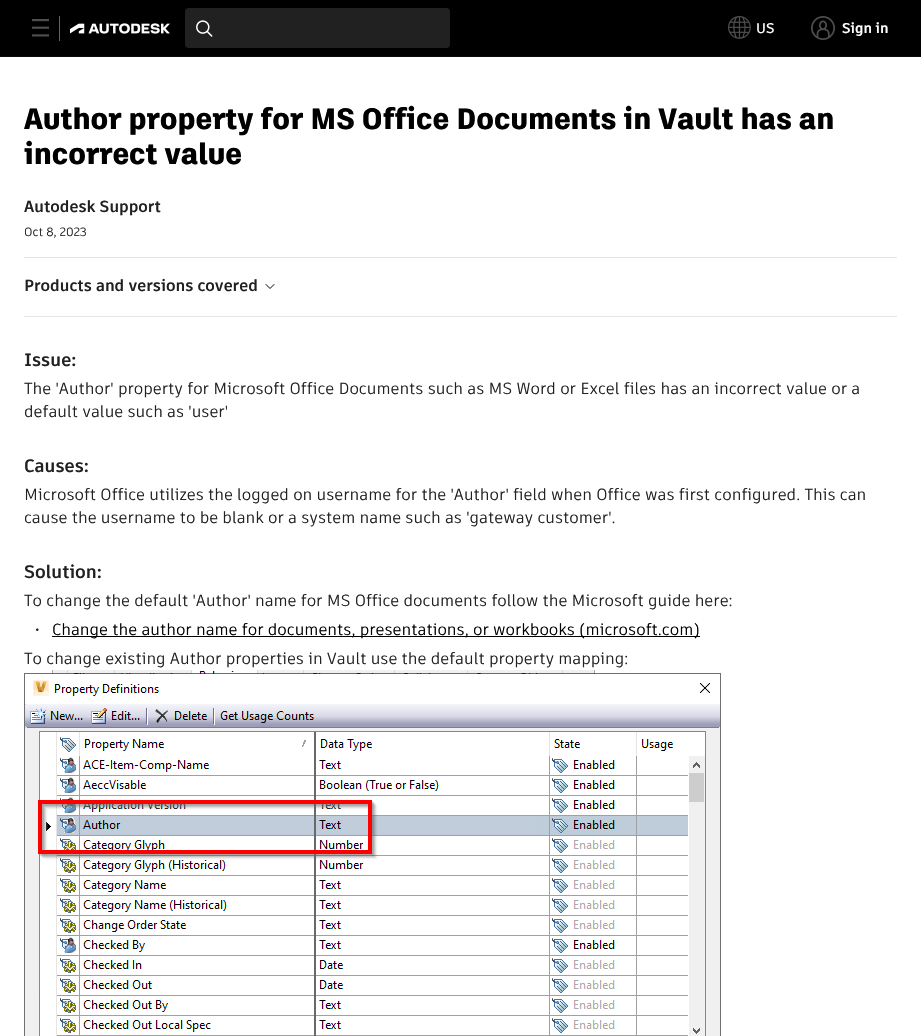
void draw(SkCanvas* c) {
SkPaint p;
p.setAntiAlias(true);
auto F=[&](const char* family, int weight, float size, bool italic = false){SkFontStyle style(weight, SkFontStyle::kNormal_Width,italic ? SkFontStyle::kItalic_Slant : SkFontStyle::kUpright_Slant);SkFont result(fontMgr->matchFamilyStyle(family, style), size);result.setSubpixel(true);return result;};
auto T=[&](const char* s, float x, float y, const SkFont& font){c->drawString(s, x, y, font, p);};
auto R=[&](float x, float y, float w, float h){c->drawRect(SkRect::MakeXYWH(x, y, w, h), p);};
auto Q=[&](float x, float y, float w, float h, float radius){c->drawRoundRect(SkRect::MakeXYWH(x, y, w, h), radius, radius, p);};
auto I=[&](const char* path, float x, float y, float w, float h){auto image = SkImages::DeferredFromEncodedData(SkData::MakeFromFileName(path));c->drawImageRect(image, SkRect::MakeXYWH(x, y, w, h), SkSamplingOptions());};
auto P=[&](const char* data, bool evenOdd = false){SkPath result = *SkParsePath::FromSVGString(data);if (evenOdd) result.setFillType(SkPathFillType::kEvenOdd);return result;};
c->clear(0xffffffff);
p.setColor(0xff000000);
R(0,0,921,56);
p.setColor(0xff0a0a0a);
R(0,56,921,1);
I("1.png",32,19,17,18);
p.setColor(0xff666666);
R(59,16,1,25);
I("2.png",70,23,100,11);
p.setColor(0xff212121);
Q(185,8,265,40,4);
I("3.png",196,20,17,17);
I("4.png",728,16,23,23);
auto f1 = F("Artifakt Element",600,14);
p.setColor(0xffffffff);
T("US",756,33,f1);
I("5.png",811,16,24,24);
auto f2 = F("Artifakt Element",700,14);
T("Sign in",842,33,f2);
auto f3 = F("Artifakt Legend",800,29.2);
p.setColor(0xff000000);
T("Author property for MS Office Documents in Vault has an",24,129,f3);
T("incorrect value",24,164,f3);
auto f4 = F("Artifakt Element",700,16);
p.setColor(0xff212121);
T("Autodesk Support",24,212,f4);
auto f5 = F("Artifakt Element",400,12);
T("Oct 8, 2023",24,236,f5);
p.setColor(0xffe5e5e5);
R(24,257,873,1);
p.setColor(0xff212121);
T("Products and versions covered",24,291,f4);
p.setStroke(true);
p.setStrokeWidth(1);
p.setStrokeCap(SkPaint::kRound_Cap);
p.setStrokeJoin(SkPaint::kRound_Join);
p.setColor(0xff000000);
c->drawPath(P("M274 284.5l-4 4l-4-4"),p);
p.setStroke(false);
p.setColor(0xffe5e5e5);
R(24,316,873,1);
auto f6 = F("Artifakt Element",700,18);
p.setColor(0xff212121);
T("Issue:",24,366,f6);
auto f7 = F("Artifakt Element",400,16);
T("The 'Author' property for Microsoft Office Documents such as MS Word or Excel files has an incorrect value or a",24,394,f7);
T("default value such as 'user'",24,417,f7);
T("Causes:",24,472,f6);
T("Microsoft Office utilizes the logged on username for the 'Author' field when Office was first configured. This can",24,500,f7);
T("cause the username to be blank or a system name such as 'gateway customer'.",24,523,f7);
T("Solution:",24,578,f6);
T("To change the default 'Author' name for MS Office documents follow the Microsoft guide here:",24,606,f7);
T("·",35,635,f4);
p.setColor(0xff000000);
R(52,636,648,1);
T("Change the author name for documents, presentations, or workbooks (microsoft.com)",52,635,f7);
p.setColor(0xff212121);
T("To change existing Author properties in Vault use the default property mapping:",24,664,f7);
I("6.png",24,670,697,366);
}
